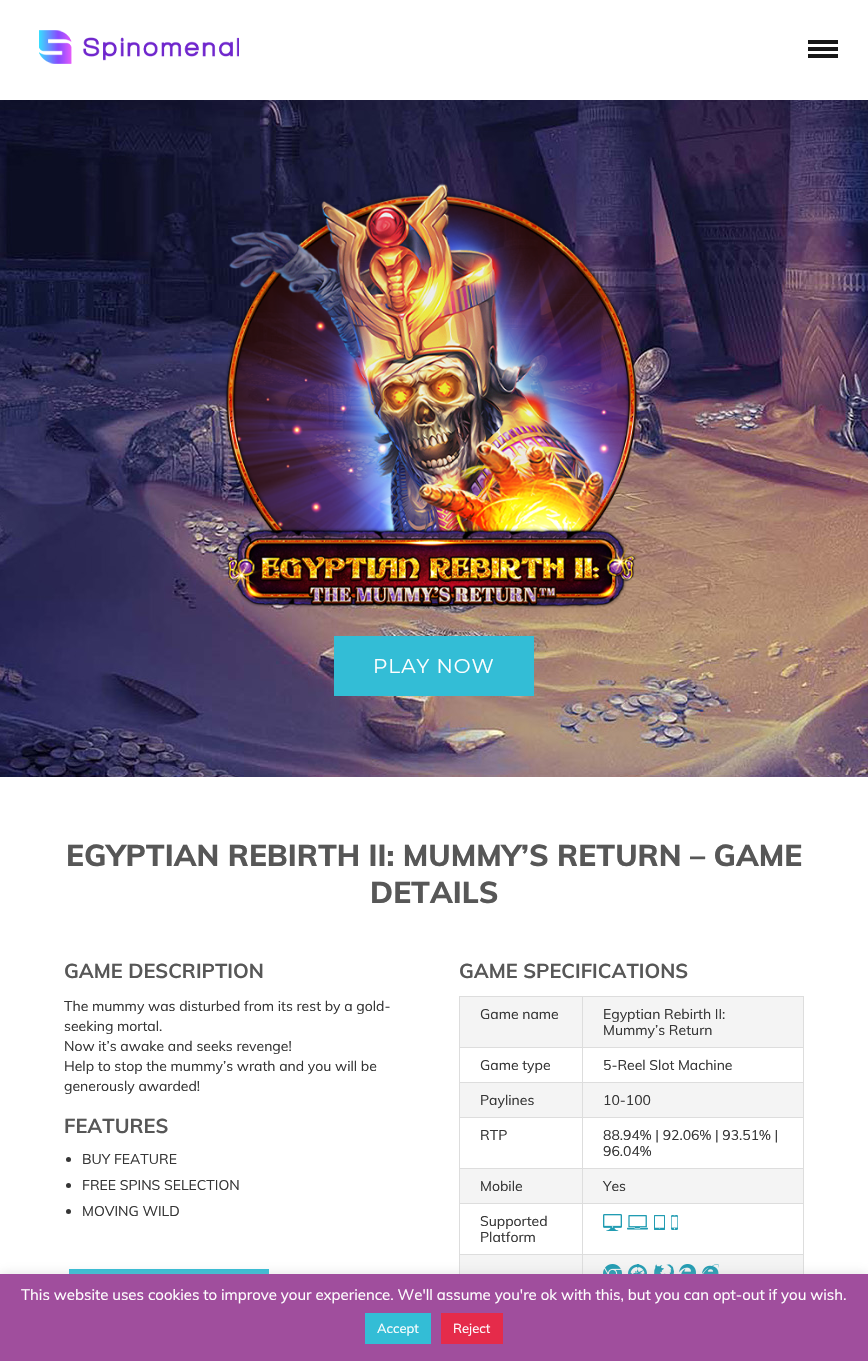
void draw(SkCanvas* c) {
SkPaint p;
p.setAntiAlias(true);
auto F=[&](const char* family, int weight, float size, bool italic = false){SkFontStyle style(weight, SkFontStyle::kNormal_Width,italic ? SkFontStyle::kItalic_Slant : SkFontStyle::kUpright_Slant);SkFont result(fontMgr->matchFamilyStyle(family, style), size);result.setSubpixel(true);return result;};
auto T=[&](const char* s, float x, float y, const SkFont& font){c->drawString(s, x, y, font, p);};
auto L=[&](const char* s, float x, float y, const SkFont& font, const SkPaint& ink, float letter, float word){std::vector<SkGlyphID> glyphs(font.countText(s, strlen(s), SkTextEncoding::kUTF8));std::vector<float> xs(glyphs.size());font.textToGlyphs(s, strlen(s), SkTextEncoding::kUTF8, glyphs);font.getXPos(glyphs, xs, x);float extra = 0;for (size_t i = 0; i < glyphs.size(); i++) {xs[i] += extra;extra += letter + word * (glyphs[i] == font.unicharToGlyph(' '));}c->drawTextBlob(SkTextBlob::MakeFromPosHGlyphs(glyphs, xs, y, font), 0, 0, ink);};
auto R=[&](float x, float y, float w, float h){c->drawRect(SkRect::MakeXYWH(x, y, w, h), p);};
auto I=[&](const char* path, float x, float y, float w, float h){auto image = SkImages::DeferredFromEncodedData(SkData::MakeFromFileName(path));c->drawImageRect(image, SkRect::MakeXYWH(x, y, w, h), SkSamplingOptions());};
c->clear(0xffffffff);
I("1.png",39,30,200,34);
p.setColor(0xff171717);
R(808,40,30,4);
R(808,47,30,4);
R(808,54,30,4);
I("2.png",0,100,868,677);
I("3.png",221,183,420,426);
p.setColor(0xff33bdd6);
R(334,636,200,60);
auto f1 = F("Montserrat",400,20);
p.setColor(0xffffffff);
L("PLAY NOW",373,673,f1,p,1,0);
auto f2 = F("Muli",800,30);
p.setColor(0xff575757);
T("EGYPTIAN REBIRTH II: MUMMY’S RETURN – GAME",66,866,f2);
T("DETAILS",370,903,f2);
auto f3 = F("Muli",700,20);
T("GAME DESCRIPTION",64,978,f3);
auto f4 = F("Muli",400,14);
p.setColor(0xff353535);
T("The mummy was disturbed from its rest by a gold-",64,1011,f4);
T("seeking mortal.",64,1031,f4);
T("Now it’s awake and seeks revenge!",64,1051,f4);
T("Help to stop the mummy’s wrath and you will be",64,1071,f4);
T("generously awarded!",64,1091,f4);
p.setColor(0xff575757);
T("FEATURES",64,1133,f3);
p.setColor(0xff353535);
c->drawCircle(68.5,1159.5,2.5,p);
T("BUY FEATURE",82,1164,f4);
c->drawCircle(68.5,1185.5,2.5,p);
T("FREE SPINS SELECTION",82,1190,f4);
c->drawCircle(68.5,1211.5,2.5,p);
T("MOVING WILD",82,1216,f4);
p.setColor(0xff33bdd6);
R(69,1269,200,5);
p.setColor(0xff575757);
T("GAME SPECIFICATIONS",459,978,f3);
p.setColor(0xfff4f4f4);
R(460,997,343,50);
p.setColor(0xffdddddd);
R(582,996,222,1);
R(582,1047,222,1);
R(582,1082,222,1);
p.setColor(0xfff4f4f4);
R(460,1083,343,34);
p.setColor(0xffdddddd);
R(582,1117,222,1);
R(582,1168,222,1);
p.setColor(0xfff4f4f4);
R(460,1169,343,34);
p.setColor(0xffdddddd);
R(582,1203,222,1);
R(582,1254,222,1);
p.setColor(0xfff4f4f4);
R(460,1255,343,19);
p.setColor(0xffdddddd);
R(582,1254,1,20);
R(459,1254,124,1);
R(582,1203,1,52);
R(459,1203,124,1);
R(582,1168,1,36);
R(459,1168,124,1);
R(582,1117,1,52);
R(459,1117,124,1);
R(582,1082,1,36);
R(459,1082,124,1);
R(582,1047,1,36);
R(459,1047,124,1);
R(582,996,1,52);
R(459,996,124,1);
R(459,1254,1,20);
R(459,1203,1,52);
R(459,1168,1,36);
R(459,1117,1,52);
R(459,1082,1,36);
R(459,1047,1,36);
R(459,996,1,52);
p.setColor(0xff353535);
T("Game name",480,1019,f4);
p.setColor(0xffdddddd);
R(803,1254,1,20);
R(803,1203,1,52);
R(803,1168,1,36);
R(803,1117,1,52);
R(803,1082,1,36);
R(803,1047,1,36);
R(803,996,1,52);
p.setColor(0xff353535);
T("Egyptian Rebirth II:",603,1019,f4);
T("Mummy’s Return",603,1035,f4);
T("Game type",480,1070,f4);
T("5-Reel Slot Machine",603,1070,f4);
T("Paylines",480,1105,f4);
T("10-100",603,1105,f4);
T("RTP",480,1140,f4);
T("88.94% | 92.06% | 93.51% |",603,1140,f4);
T("96.04%",603,1156,f4);
T("Mobile",480,1191,f4);
T("Yes",603,1191,f4);
T("Supported",480,1226,f4);
T("Platform",480,1242,f4);
I("4.png",603,1214,75,17);
I("5.png",603,1264,116,10);
p.setColor(0x4dacabab);
p.setMaskFilter(SkMaskFilter::MakeBlur(kNormal_SkBlurStyle, 5));
c->drawRect(SkRect::MakeXYWH(0,1273,868,87),p);
p.setMaskFilter(nullptr);
p.setColor(0xffa04e9d);
R(0,1274,868,87);
auto f5 = F("Muli",400,15);
p.setColor(0xffffffff);
T("This website uses cookies to improve your experience. We'll assume you're ok with this, but you can opt-out if you wish.",21,1300,f5);
p.setColor(0xff33bdd6);
R(365,1313,66,31);
auto f6 = F("Muli",400,13);
p.setColor(0xffffffff);
T("Accept",377,1333,f6);
p.setColor(0xffe52b4a);
R(441,1313,62,31);
p.setColor(0xffffffff);
T("Reject",453,1333,f6);
}
